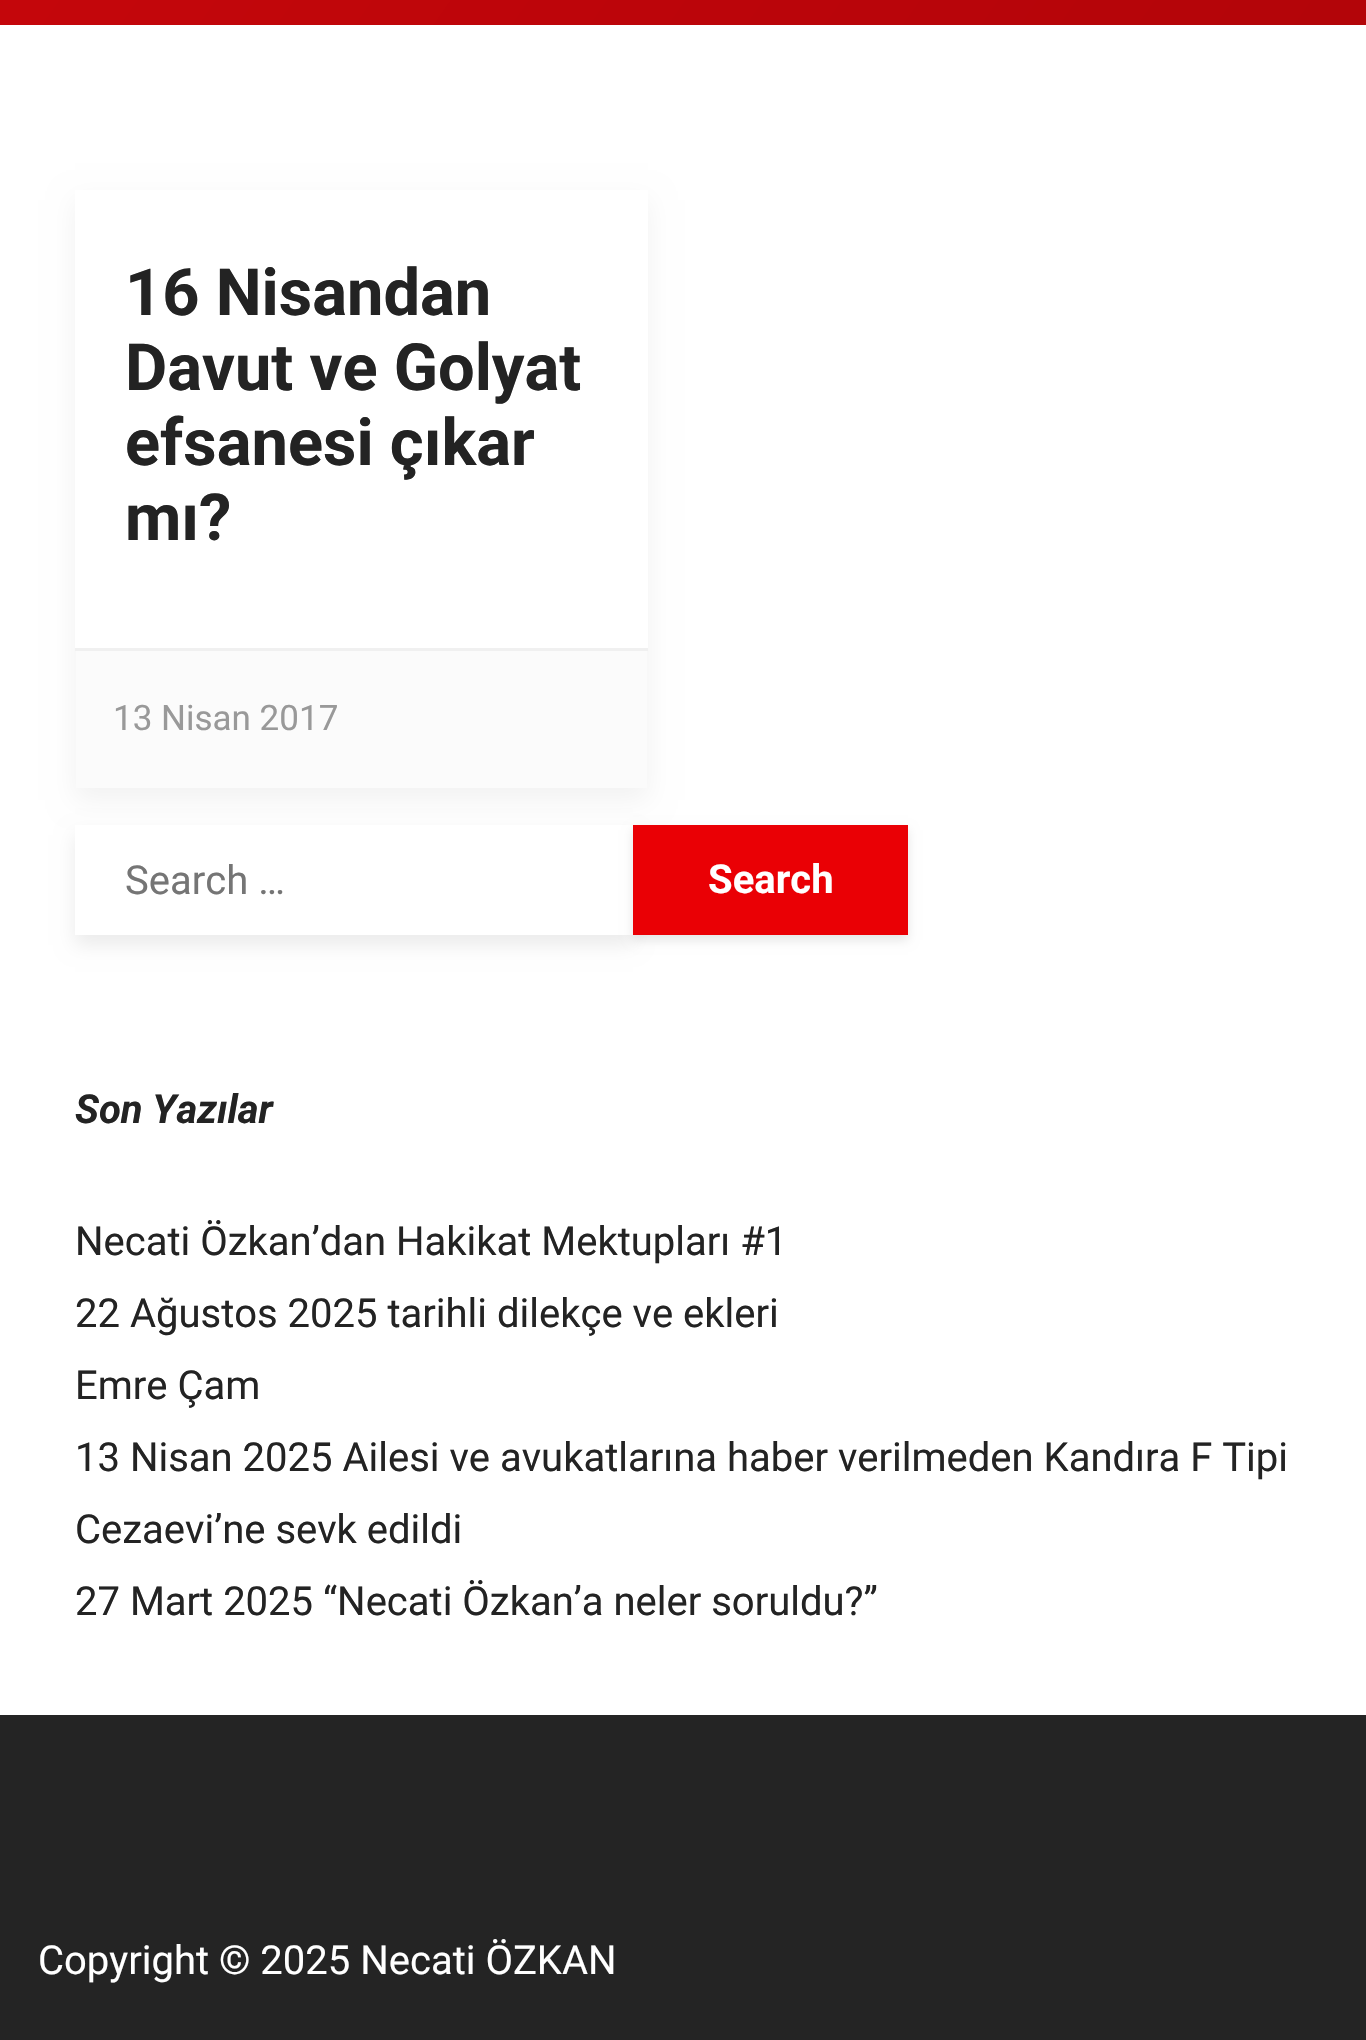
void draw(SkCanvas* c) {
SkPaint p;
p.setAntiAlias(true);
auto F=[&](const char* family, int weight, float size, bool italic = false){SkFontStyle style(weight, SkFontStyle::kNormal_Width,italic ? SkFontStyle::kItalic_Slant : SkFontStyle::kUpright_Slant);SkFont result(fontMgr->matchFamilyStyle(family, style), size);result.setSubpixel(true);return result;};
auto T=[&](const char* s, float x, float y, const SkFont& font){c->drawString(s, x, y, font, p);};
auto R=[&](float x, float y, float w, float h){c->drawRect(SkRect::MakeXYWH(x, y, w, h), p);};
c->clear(0xff242424);
{
const SkColor colors[] = {0xffc6060b,0xffa80408};
const float stops[] = {0,1};
const SkPoint ends[] = {{-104,-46}, {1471,1057}};
p.setShader(SkGradientShader::MakeLinear(ends, colors, stops, 2, SkTileMode::kClamp));
p.setAlpha(255);
}
R(0,0,1366,25);
p.setShader(nullptr);
p.setColor(0xffffffff);
R(0,25,1366,1690);
p.setColor(0x0d000000);
p.setMaskFilter(SkMaskFilter::MakeBlur(kNormal_SkBlurStyle, 12.5));
c->drawRect(SkRect::MakeXYWH(75,200,573,600),p);
p.setMaskFilter(nullptr);
p.setColor(0xffffffff);
R(75,190,573,458);
auto f1 = F("Roboto",700,65);
p.setColor(0xff232323);
T("16 Nisandan",125,315,f1);
T("Davut ve Golyat",125,390,f1);
T("efsanesi çıkar",125,465,f1);
T("mı?",125,540,f1);
p.setColor(0xfffbfbfb);
R(76,651,571,137);
p.setColor(0xfff0f0f0);
R(75,648,573,3);
auto f2 = F("Roboto",400,35);
p.setColor(0xff999999);
T("13 Nisan 2017",113,730,f2);
p.setColor(0x14000000);
p.setMaskFilter(SkMaskFilter::MakeBlur(kNormal_SkBlurStyle, 9));
c->drawRect(SkRect::MakeXYWH(75,835,558,110),p);
p.setMaskFilter(nullptr);
p.setColor(0xffffffff);
R(75,825,558,110);
auto f3 = F("Roboto",400,40);
p.setColor(0xff757575);
T("Search …",125,894,f3);
p.setColor(0x1a000000);
p.setMaskFilter(SkMaskFilter::MakeBlur(kNormal_SkBlurStyle, 5));
c->drawRect(SkRect::MakeXYWH(633,830,275,110),p);
p.setMaskFilter(nullptr);
p.setColor(0xffea0005);
R(633,825,275,110);
auto f4 = F("Roboto",700,40);
p.setColor(0xffffffff);
T("Search",708,893,f4);
auto f5 = F("Roboto",700,40,true);
p.setColor(0xff232323);
T("Son Yazılar",75,1123,f5);
T("Necati Özkan’dan Hakikat Mektupları #1",75,1255,f3);
T("22 Ağustos 2025 tarihli dilekçe ve ekleri",75,1327,f3);
T("Emre Çam",75,1399,f3);
T("13 Nisan 2025 Ailesi ve avukatlarına haber verilmeden Kandıra F Tipi",75,1471,f3);
T("Cezaevi’ne sevk edildi",75,1543,f3);
T("27 Mart 2025 “Necati Özkan’a neler soruldu?”",75,1615,f3);
p.setColor(0xffffffff);
T("Copyright © 2025 Necati ÖZKAN",38,1974,f3);
}
